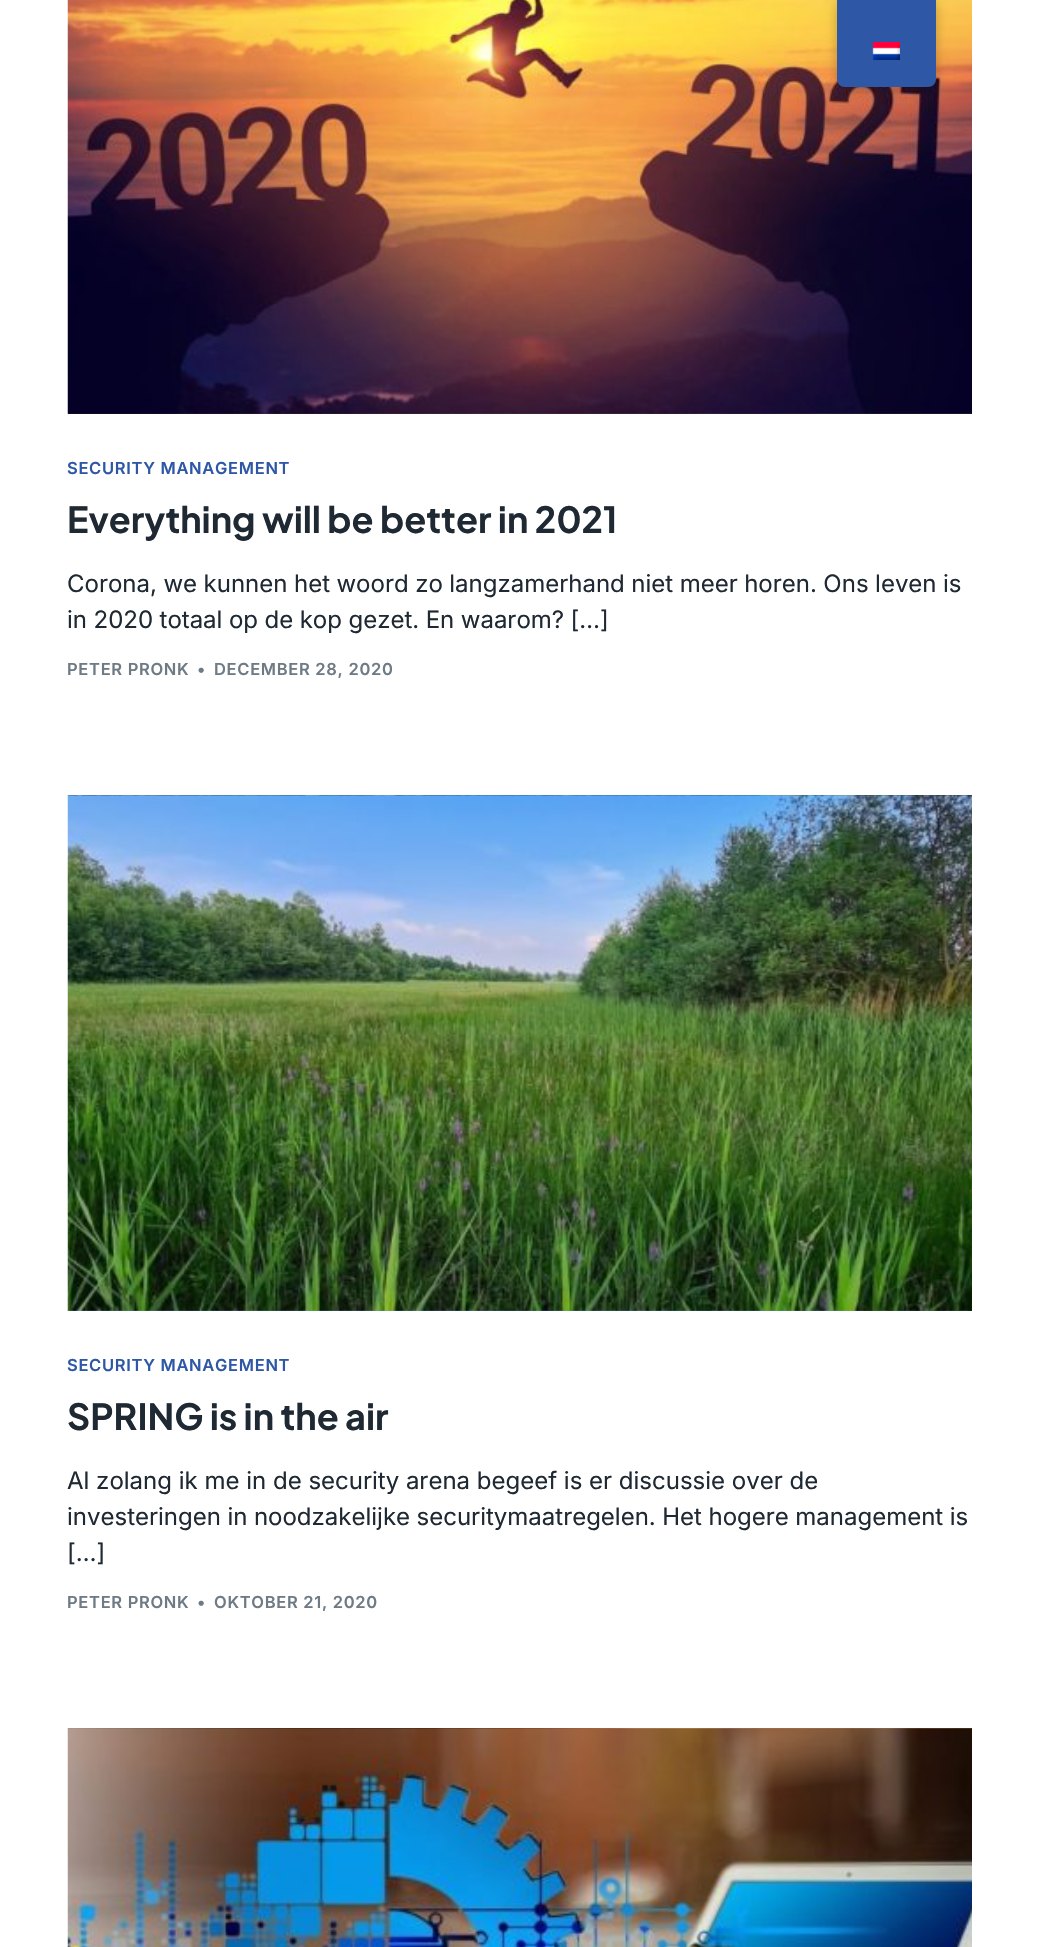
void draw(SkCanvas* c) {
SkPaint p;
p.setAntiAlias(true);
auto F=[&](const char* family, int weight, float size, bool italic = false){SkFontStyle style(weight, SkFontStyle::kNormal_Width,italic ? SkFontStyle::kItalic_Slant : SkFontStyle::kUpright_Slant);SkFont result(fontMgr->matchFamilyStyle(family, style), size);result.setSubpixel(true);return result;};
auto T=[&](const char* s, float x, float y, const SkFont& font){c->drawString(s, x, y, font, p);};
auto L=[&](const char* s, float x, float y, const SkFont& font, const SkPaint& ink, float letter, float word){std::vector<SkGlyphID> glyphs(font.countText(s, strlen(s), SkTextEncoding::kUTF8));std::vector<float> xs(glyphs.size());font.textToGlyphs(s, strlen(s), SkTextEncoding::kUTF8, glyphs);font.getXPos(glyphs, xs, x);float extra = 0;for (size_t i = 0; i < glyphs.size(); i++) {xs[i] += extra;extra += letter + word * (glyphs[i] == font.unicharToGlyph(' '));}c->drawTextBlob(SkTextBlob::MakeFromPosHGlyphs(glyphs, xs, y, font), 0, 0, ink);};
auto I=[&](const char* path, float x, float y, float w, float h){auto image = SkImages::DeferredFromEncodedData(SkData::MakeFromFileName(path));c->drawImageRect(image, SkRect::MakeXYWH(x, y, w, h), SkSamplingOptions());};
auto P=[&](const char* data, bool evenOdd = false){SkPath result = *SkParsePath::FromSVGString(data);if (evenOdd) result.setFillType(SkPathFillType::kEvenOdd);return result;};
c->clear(0xffffffff);
I("2.png",67,0,905,414);
p.setColor(0x40000000);
p.setMaskFilter(SkMaskFilter::MakeBlur(kNormal_SkBlurStyle, 6));
c->drawRoundRect(SkRect::MakeXYWH(837,0,99,87),8,8,p);
p.setMaskFilter(nullptr);
p.setColor(0xff2e57a6);
c->drawPath(P("M837 0h99v79c0 4.5-3.5 8-8 8h-83c-4.5 0-8-3.5-8-8z"),p);
I("1.png",872,42,28,18);
auto f1 = F("Inter",600,16.5);
L("SECURITY MANAGEMENT",67,474,f1,p,.7,0);
auto f2 = F("Plus Jakarta Sans",700,36);
p.setColor(0xff1f2933);
T("Everything will be better in 2021",67,533,f2);
auto f3 = F("Inter",400,24);
L("Corona, we kunnen het woord zo langzamerhand niet meer horen. Ons leven is",67,592,f3,p,0,-.25);
L("in 2020 totaal op de kop gezet. En waarom? […]",67,628,f3,p,0,-.25);
p.setColor(0xff6e7a84);
L("PETER PRONK",67,675,f1,p,.7,0);
L("•",197,675,f1,p,.7,0);
L("DECEMBER 28, 2020",214,675,f1,p,.7,0);
I("3.png",67,795,905,516);
p.setColor(0xff2e57a6);
L("SECURITY MANAGEMENT",67,1371,f1,p,.7,0);
p.setColor(0xff1f2933);
T("SPRING is in the air",67,1430,f2);
T("Al zolang ik me in de security arena begeef is er discussie over de",67,1489,f3);
L("investeringen in noodzakelijke securitymaatregelen. Het hogere management is",67,1525,f3,p,0,-.25);
T("[…]",67,1561,f3);
p.setColor(0xff6e7a84);
L("PETER PRONK",67,1608,f1,p,.7,0);
L("•",197,1608,f1,p,.7,0);
L("OKTOBER 21, 2020",214,1608,f1,p,.7,0);
I("4.png",67,1728,905,219);
}
